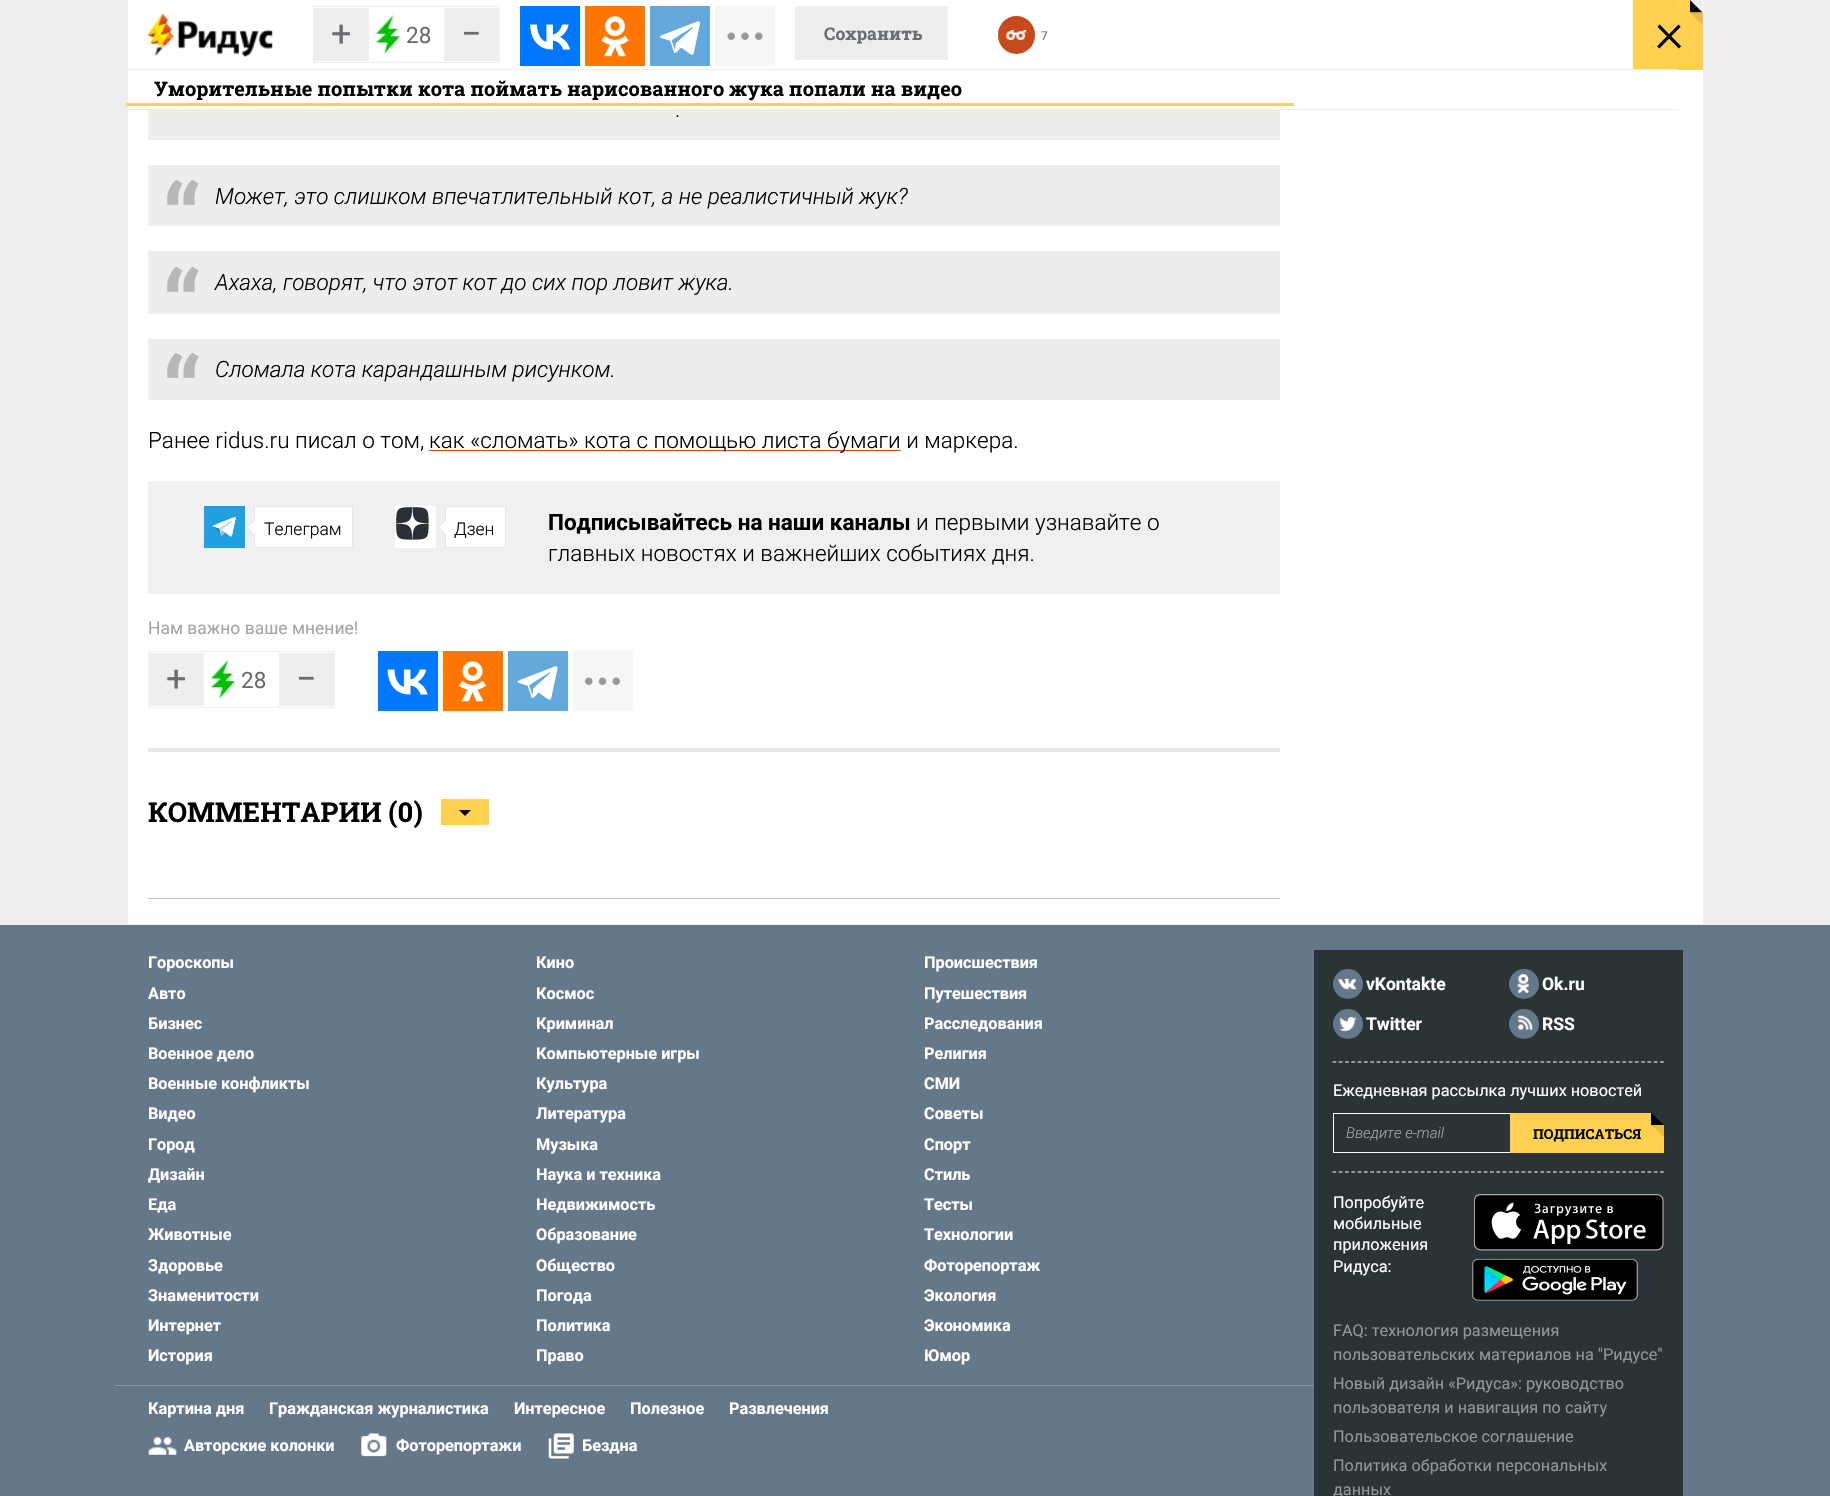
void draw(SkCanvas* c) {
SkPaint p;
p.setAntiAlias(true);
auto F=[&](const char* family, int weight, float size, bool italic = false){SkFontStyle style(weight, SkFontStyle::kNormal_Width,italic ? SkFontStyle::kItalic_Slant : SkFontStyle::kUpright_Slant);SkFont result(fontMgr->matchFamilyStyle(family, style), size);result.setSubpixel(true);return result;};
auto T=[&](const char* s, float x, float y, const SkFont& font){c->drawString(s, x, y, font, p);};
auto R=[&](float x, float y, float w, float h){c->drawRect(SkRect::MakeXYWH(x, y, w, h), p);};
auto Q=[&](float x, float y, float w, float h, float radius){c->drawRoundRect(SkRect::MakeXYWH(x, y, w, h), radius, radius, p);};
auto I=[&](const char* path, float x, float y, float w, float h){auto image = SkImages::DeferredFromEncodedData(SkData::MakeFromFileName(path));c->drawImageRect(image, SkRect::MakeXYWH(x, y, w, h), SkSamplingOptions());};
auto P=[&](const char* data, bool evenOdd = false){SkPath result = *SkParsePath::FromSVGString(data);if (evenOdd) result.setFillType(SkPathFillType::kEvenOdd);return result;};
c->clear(0xffeeeeee);
p.setColor(0xffffffff);
R(128,0,1575,69);
I("1.png",147,13,126,44);
p.setStroke(true);
p.setStrokeWidth(1);
p.setColor(0xffeeeeee);
c->drawRect(SkRect::MakeXYWH(313.5,6.5,186,56),p);
p.setStroke(false);
R(314,8,55,53);
auto f1 = F("Roboto",400,36);
p.setColor(0xff686b6f);
T("+",331,46,f1);
I("2.png",376,15,25,39);
auto f2 = F("Roboto",400,22.5);
T("28",406,43,f2);
p.setColor(0xffeeeeee);
R(444,8,55,53);
p.setColor(0xff686b6f);
T("−",461,46,f1);
p.setColor(0xff0077ff);
R(520,6,60,60);
I("3.png",530,24,41,26);
p.setColor(0xffff7700);
R(585,6,60,60);
I("4.png",601,16,28,41);
p.setColor(0xff64a9dc);
R(650,6,60,60);
I("5.png",660,21,40,34);
p.setColor(0xfff7f7f7);
R(715,6,60,60);
I("6.png",727,32,36,8);
p.setColor(0xffeeeeee);
R(795,6,153,54);
auto f3 = F("Roboto Slab",700,17.5);
p.setColor(0xff686b6f);
T("Сохранить",824,40,f3);
p.setColor(0xffc64a1b);
Q(998,16,37,38,18.5);
I("7.png",1006,30,20,10);
auto f4 = F("Roboto",400,12);
p.setColor(0xff686b6f);
T("7",1041,40,f4);
p.setColor(0xffffd051);
R(1633,0,56,70);
auto f5 = F("Roboto Slab",300,56);
p.setColor(0xff000000);
T("×",1655,55,f5);
p.setColor(0xffffd051);
R(1689,13,14,57);
c->drawPath(P("M1689 0v13h12v-.5h-11v-12.5z"),p);
p.setColor(0xffeeeeee);
c->drawPath(P("M1690 0h12.5l-6.5 6z"),p);
c->drawPath(P("M1702.5 0v12.5l-6.5-6.5z"),p);
p.setColor(0xff000000);
c->drawPath(P("M1702.5 12.5h-12.5l6-6.5z"),p);
c->drawPath(P("M1690 12.5v-12.5l6 6z"),p);
p.setColor(0xffe6bb49);
c->drawPath(P("M1690 12.5h12.5l-6.5 6.5z"),p);
p.setColor(0x1a000000);
c->drawPath(P("M1702.5 12.5v12.5l-6.5-6z"),p);
p.setColor(0xffeeeeee);
R(1633,69,45,1);
p.setColor(0xffffffff);
R(128,70,1575,854);
p.setColor(0xffeeeeee);
R(129,109,1549,1);
auto f6 = F("Roboto Slab",700,20);
p.setColor(0xff000000);
T("Уморительные попытки кота поймать нарисованного жука попали на видео",154,96,f6);
p.setColor(0xffffd051);
R(126,103,1168,3);
p.setColor(0xffededed);
R(148,110,1132,30);
auto f7 = F("Roboto",300,22.5,true);
p.setColor(0xff000000);
T(".",676,117,f7);
p.setColor(0xffededed);
R(148,165,1132,61);
auto f8 = F("Roboto",700,98);
p.setColor(0xffb7b7b7);
T("“",162,255,f8);
p.setColor(0xff000000);
T("Может, это слишком впечатлительный кот, а не реалистичный жук?",215,204,f7);
p.setColor(0xffededed);
R(148,251,1132,63);
p.setColor(0xffb7b7b7);
T("“",162,342,f8);
p.setColor(0xff000000);
T("Ахаха, говорят, что этот кот до сих пор ловит жука.",215,290,f7);
p.setColor(0xffededed);
R(148,339,1132,61);
p.setColor(0xffb7b7b7);
T("“",162,428,f8);
p.setColor(0xff000000);
T("Сломала кота карандашным рисунком.",215,377,f7);
auto f9 = F("Roboto",300,22.5);
T("Ранее ridus.ru писал о том,",148,448,f9);
p.setColor(0xffc64a1b);
R(429,450,472,1);
p.setColor(0xff000000);
T("как «сломать» кота с помощью листа бумаги и маркера.",429,448,f9);
p.setColor(0xfff0f0f0);
R(148,481,1132,113);
I("8.png",204,506,41,42);
p.setColor(0xffffffff);
c->drawRect(SkRect::MakeXYWH(254.5,506.5,98,41),p);
p.setStroke(true);
p.setColor(0xffe4e4e4);
c->drawRect(SkRect::MakeXYWH(254.5,506.5,98,41),p);
p.setStroke(false);
c->drawPath(P("M254 520v15l-8-7.5z"),p);
p.setColor(0xffffffff);
c->drawPath(P("M255 520v15l-7.5-7.5z"),p);
auto f10 = F("Roboto",300,17.5);
p.setColor(0xff000000);
T("Телеграм",264,535,f10);
p.setColor(0xffffffff);
R(395,506,41,42);
I("9.png",396,507,33,33);
c->drawRect(SkRect::MakeXYWH(445.5,506.5,60,41),p);
p.setStroke(true);
p.setColor(0xffe4e4e4);
c->drawRect(SkRect::MakeXYWH(445.5,506.5,60,41),p);
p.setStroke(false);
c->drawPath(P("M445 520v15l-7.5-7.5z"),p);
p.setColor(0xffffffff);
c->drawPath(P("M446 520v15l-7-7.5z"),p);
p.setColor(0xff000000);
T("Дзен",454,535,f10);
auto f11 = F("Roboto",700,22.5);
T("Подписывайтесь на наши каналы",548,530,f11);
T("и первыми узнавайте о",916,530,f9);
T("главных новостях и важнейших событиях дня.",548,561,f9);
auto f12 = F("Roboto",400,17.5);
p.setColor(0xffa6a5a5);
T("Нам важно ваше мнение!",148,634,f12);
p.setStroke(true);
p.setColor(0xffeeeeee);
c->drawRect(SkRect::MakeXYWH(148.5,651.5,186,56),p);
p.setStroke(false);
R(149,653,55,53);
p.setColor(0xff686b6f);
T("+",166,691,f1);
I("10.png",211,659,25,40);
T("28",241,688,f2);
p.setColor(0xffeeeeee);
R(279,653,55,53);
p.setColor(0xff686b6f);
T("−",296,691,f1);
p.setColor(0xff0077ff);
R(378,651,60,60);
I("11.png",387,669,41,26);
p.setColor(0xffff7700);
R(443,651,60,60);
I("12.png",459,661,27,41);
p.setColor(0xff64a9dc);
R(508,651,60,60);
I("13.png",517,666,41,34);
p.setColor(0xfff7f7f7);
R(573,651,60,60);
I("14.png",585,677,35,8);
p.setColor(0xffe8e8e8);
R(148,748,1132,4);
p.setColor(0xffc2c2c2);
R(148,898,1132,1);
auto f13 = F("Roboto Slab",700,27.5);
p.setColor(0xff000000);
T("КОММЕНТАРИИ (0)",148,822,f13);
p.setColor(0xffffd051);
R(441,799,48,26);
p.setColor(0xff000000);
c->drawPath(P("M459 810h12l-6 6z"),p);
p.setColor(0xff657889);
R(0,925,1830,571);
auto f14 = F("Roboto",700,16.25);
p.setColor(0xffffffff);
T("Гороскопы",148,968,f14);
T("Кино",536,968,f14);
T("Происшествия",924,968,f14);
T("Авто",148,999,f14);
T("Космос",536,999,f14);
T("Путешествия",924,999,f14);
T("Бизнес",148,1029,f14);
T("Криминал",536,1029,f14);
T("Расследования",924,1029,f14);
T("Военное дело",148,1059,f14);
T("Компьютерные игры",536,1059,f14);
T("Религия",924,1059,f14);
T("Военные конфликты",148,1089,f14);
T("Культура",536,1089,f14);
T("СМИ",924,1089,f14);
T("Видео",148,1119,f14);
T("Литература",536,1119,f14);
T("Советы",924,1119,f14);
T("Город",148,1150,f14);
T("Музыка",536,1150,f14);
T("Спорт",924,1150,f14);
T("Дизайн",148,1180,f14);
T("Наука и техника",536,1180,f14);
T("Стиль",924,1180,f14);
T("Еда",148,1210,f14);
T("Недвижимость",536,1210,f14);
T("Тесты",924,1210,f14);
T("Животные",148,1240,f14);
T("Образование",536,1240,f14);
T("Технологии",924,1240,f14);
T("Здоровье",148,1271,f14);
T("Общество",536,1271,f14);
T("Фоторепортаж",924,1271,f14);
T("Знаменитости",148,1301,f14);
T("Погода",536,1301,f14);
T("Экология",924,1301,f14);
T("Интернет",148,1331,f14);
T("Политика",536,1331,f14);
T("Экономика",924,1331,f14);
T("История",148,1361,f14);
T("Право",536,1361,f14);
T("Юмор",924,1361,f14);
p.setColor(0xff8b99a5);
R(115,1385,1199,1);
p.setColor(0xffffffff);
T("Картина дня",148,1414,f14);
T("Гражданская журналистика",269,1414,f14);
T("Интересное",514,1414,f14);
T("Полезное",630,1414,f14);
T("Развлечения",729,1414,f14);
I("15.png",148,1437,29,18);
T("Авторские колонки",184,1451,f14);
I("16.png",361,1433,26,24);
T("Фоторепортажи",396,1451,f14);
I("17.png",548,1433,26,26);
T("Бездна",582,1451,f14);
p.setColor(0xff2a3436);
R(1314,950,369,546);
p.setColor(0xff657889);
c->drawCircle(1348,984,15,p);
I("18.png",1338,978,19,12);
auto f15 = F("Roboto",700,17.5);
p.setColor(0xffffffff);
T("vKontakte",1366,990,f15);
p.setColor(0xff657889);
c->drawCircle(1524,984,15,p);
I("19.png",1517,974,12,19);
p.setColor(0xffffffff);
T("Ok.ru",1542,990,f15);
p.setColor(0xff657889);
c->drawCircle(1348,1024,15,p);
I("20.png",1339,1017,18,14);
p.setColor(0xffffffff);
T("Twitter",1366,1030,f15);
p.setColor(0xff657889);
c->drawCircle(1524,1024,15,p);
I("21.png",1518,1015,15,15);
p.setColor(0xffffffff);
T("RSS",1542,1030,f15);
p.setStroke(true);
p.setStrokeWidth(1.2);
p.setPathEffect(SkDashPathEffect::Make({{3.75f,2.55f}}, 0));
c->drawPath(P("M1332.5 1062h331.5"),p);
p.setPathEffect(nullptr);
auto f16 = F("Roboto",400,16.25);
p.setStroke(false);
T("Ежедневная рассылка лучших новостей",1333,1096,f16);
p.setStroke(true);
p.setStrokeWidth(1);
c->drawRect(SkRect::MakeXYWH(1333.5,1113.5,297,39),p);
auto f17 = F("Roboto",300,15,true);
p.setStroke(false);
p.setColor(0xffa6a5a5);
T("Введите e-mail",1346,1138,f17);
p.setColor(0xffffd051);
R(1510,1113,141,40);
auto f18 = F("Roboto Slab",700,13.75);
p.setColor(0xff000000);
T("ПОДПИСАТЬСЯ",1533,1139,f18);
p.setColor(0xffffd051);
R(1651,1125,13,28);
p.setColor(0xff000000);
c->drawPath(P("M1664 1125h-13l6.5-6z"),p);
c->drawPath(P("M1651 1125v-12.5l6.5 6.5z"),p);
p.setColor(0xffe6bb49);
c->drawPath(P("M1651 1125h13l-6.5 6z"),p);
p.setColor(0x1a000000);
c->drawPath(P("M1664 1125v12.5l-6.5-6.5z"),p);
p.setStroke(true);
p.setStrokeWidth(1.2);
p.setColor(0xffffffff);
p.setPathEffect(SkDashPathEffect::Make({{3.75f,2.55f}}, 0));
c->drawPath(P("M1332.5 1172h331.5"),p);
p.setPathEffect(nullptr);
p.setStroke(false);
T("Попробуйте",1333,1208,f16);
T("мобильные",1333,1229,f16);
T("приложения",1333,1250,f16);
T("Ридуса:",1333,1272,f16);
I("22.png",1474,1194,190,57);
I("23.png",1472,1258,166,43);
p.setColor(0xff939798);
T("FAQ: технология размещения",1333,1336,f16);
T("пользовательских материалов на \"Ридусе\"",1333,1360,f16);
T("Новый дизайн «Ридуса»: руководство",1333,1389,f16);
T("пользователя и навигация по сайту",1333,1413,f16);
T("Пользовательское соглашение",1333,1442,f16);
T("Политика обработки персональных",1333,1471,f16);
T("данных",1333,1495,f16);
}
